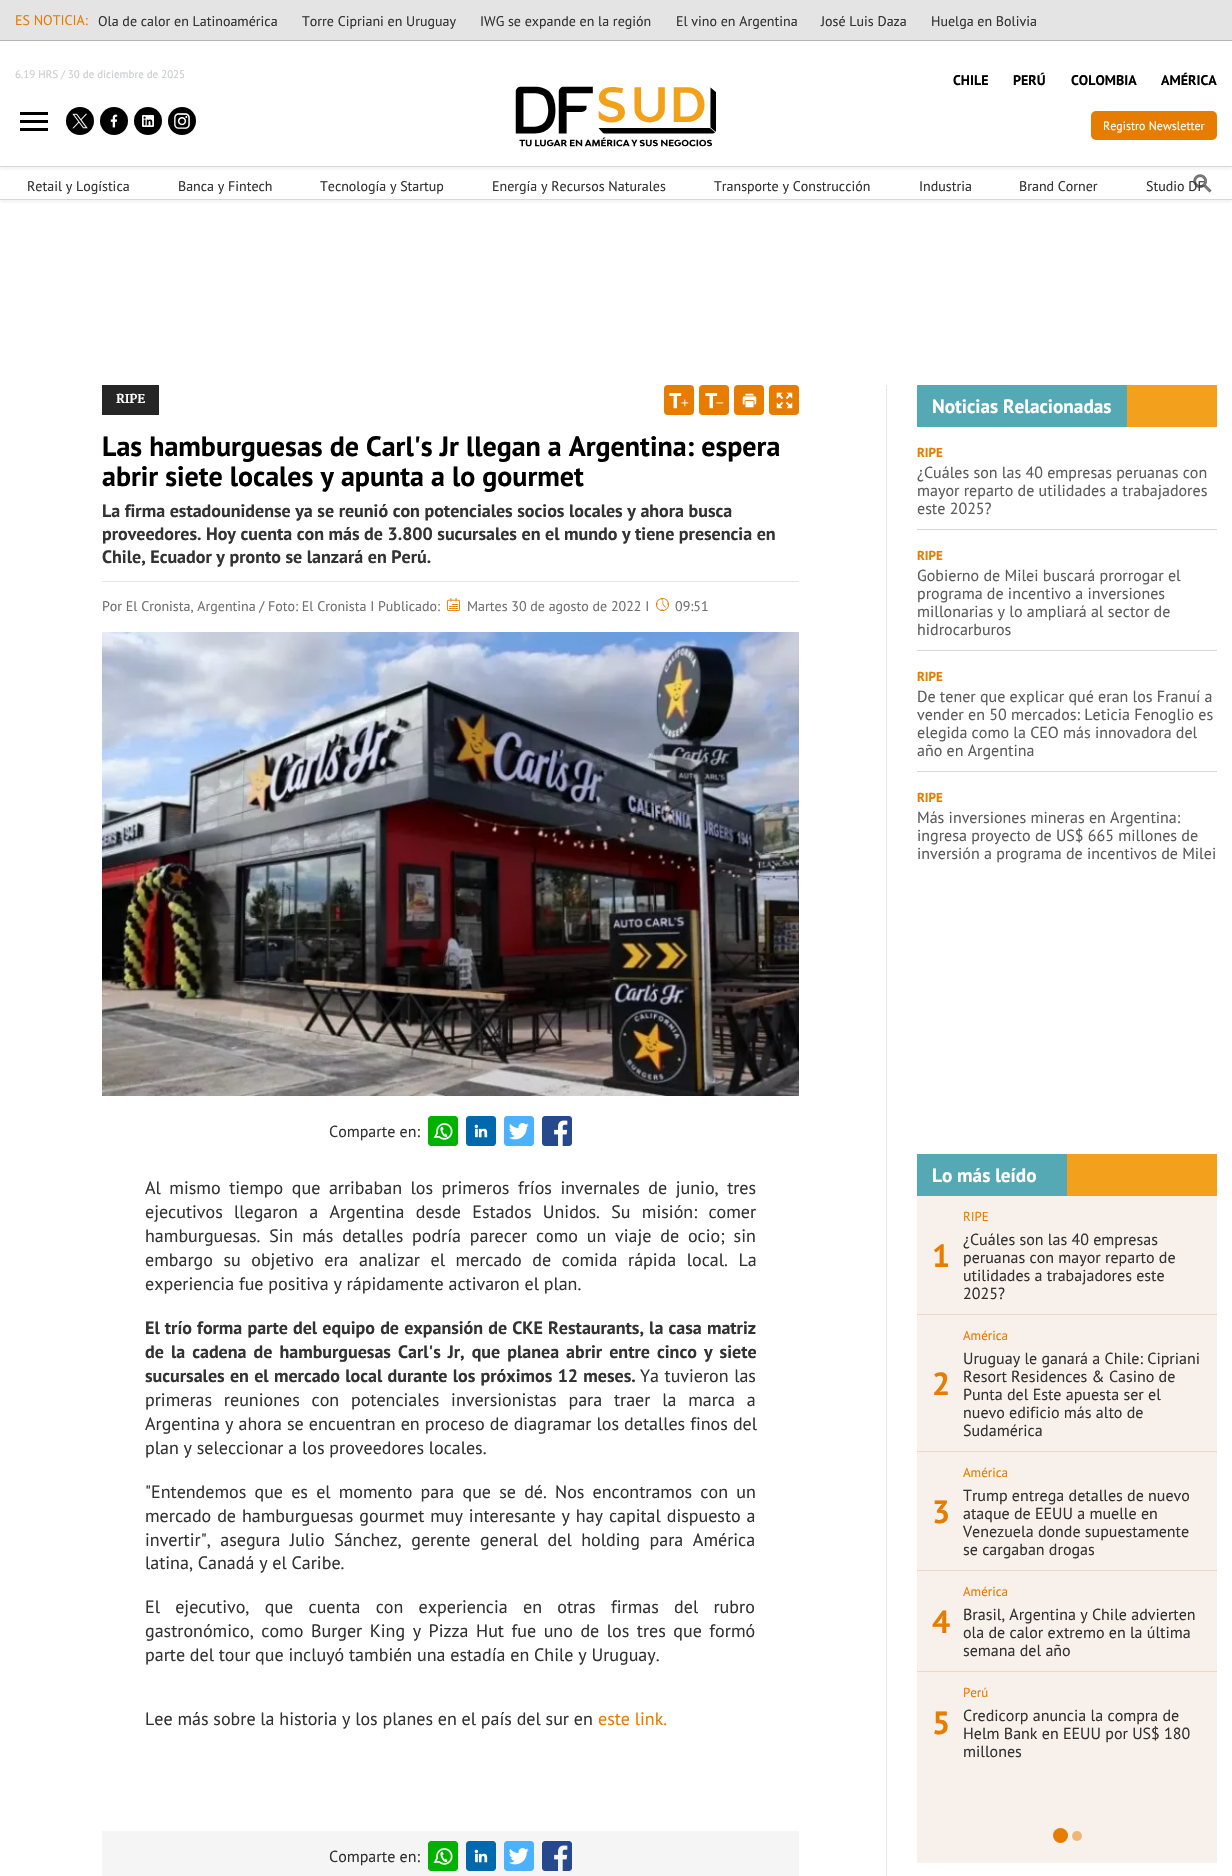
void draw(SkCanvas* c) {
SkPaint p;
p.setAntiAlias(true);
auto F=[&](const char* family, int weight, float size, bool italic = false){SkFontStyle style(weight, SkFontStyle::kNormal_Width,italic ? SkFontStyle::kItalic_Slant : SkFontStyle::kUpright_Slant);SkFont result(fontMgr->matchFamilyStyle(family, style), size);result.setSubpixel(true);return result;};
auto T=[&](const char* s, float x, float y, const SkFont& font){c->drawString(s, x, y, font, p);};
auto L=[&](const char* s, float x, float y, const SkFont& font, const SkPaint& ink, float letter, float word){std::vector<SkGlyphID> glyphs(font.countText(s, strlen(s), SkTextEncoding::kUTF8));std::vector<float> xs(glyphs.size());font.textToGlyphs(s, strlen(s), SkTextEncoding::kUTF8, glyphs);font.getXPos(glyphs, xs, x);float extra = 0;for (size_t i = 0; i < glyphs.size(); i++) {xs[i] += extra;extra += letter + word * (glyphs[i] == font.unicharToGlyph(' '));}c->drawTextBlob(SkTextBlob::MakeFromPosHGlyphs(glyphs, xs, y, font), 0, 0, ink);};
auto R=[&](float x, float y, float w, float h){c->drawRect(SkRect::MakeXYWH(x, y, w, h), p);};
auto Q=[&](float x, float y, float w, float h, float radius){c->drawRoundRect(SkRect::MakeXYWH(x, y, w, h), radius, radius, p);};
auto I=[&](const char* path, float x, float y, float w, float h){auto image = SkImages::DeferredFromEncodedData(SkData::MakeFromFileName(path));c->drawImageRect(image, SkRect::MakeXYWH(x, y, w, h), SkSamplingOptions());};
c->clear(0xffffffff);
c->save();
c->clipRect(SkRect::MakeXYWH(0,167,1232,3));
p.setColor(0x0f000000);
p.setMaskFilter(SkMaskFilter::MakeBlur(kNormal_SkBlurStyle, 2));
c->drawRect(SkRect::MakeXYWH(0,2,1232,167),p);
p.setMaskFilter(nullptr);
c->restore();
p.setColor(0xffd8d8d8);
R(0,166,1232,1);
p.setColor(0xffe4e4e4);
R(0,0,1232,40);
p.setColor(0xffb5b5b5);
R(0,40,1232,1);
auto f1 = F("PT Sans",400,14);
p.setColor(0xffe67d00);
T("ES NOTICIA:",15,25,f1);
p.setColor(0xff333333);
T("Ola de calor en Latinoamérica",98,26,f1);
T("Torre Cipriani en Uruguay",302,26,f1);
T("IWG se expande en la región",480,26,f1);
T("El vino en Argentina",676,26,f1);
T("José Luis Daza",821,26,f1);
T("Huelga en Bolivia",931,26,f1);
auto f2 = F("PT Sans",400,11);
p.setColor(0xffcccdd0);
T("6.19 HRS / 30 de diciembre de 2025",15,78,f2);
p.setColor(0xff000000);
R(20,112,28,3);
R(20,120,28,3);
R(20,128,28,3);
c->drawCircle(80,121,14,p);
I("1.png",72,113,16,16);
c->drawCircle(114,121,14,p);
I("2.png",110,114,8,14);
c->drawCircle(148,121,14,p);
I("3.png",142,115,12,12);
c->drawCircle(182,121,14,p);
I("4.png",174,113,16,16);
I("5.png",515,86,202,61);
auto f3 = F("PT Sans",700,14);
T("CHILE",953,85,f3);
T("PERÚ",1013,85,f3);
T("COLOMBIA",1071,85,f3);
T("AMÉRICA",1161,85,f3);
p.setColor(0xffe67d00);
Q(1091,111,126,29,5);
auto f4 = F("PT Sans",400,12);
p.setColor(0xffffffff);
T("Registro Newsletter",1103,130,f4);
c->save();
c->clipRect(SkRect::MakeXYWH(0,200,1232,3));
p.setColor(0x0f000000);
p.setMaskFilter(SkMaskFilter::MakeBlur(kNormal_SkBlurStyle, 2));
c->drawRect(SkRect::MakeXYWH(0,169,1232,33),p);
p.setMaskFilter(nullptr);
c->restore();
p.setColor(0xffd8d8d8);
R(0,199,1232,1);
p.setColor(0xff333333);
T("Studio DF",1146,191,f1);
I("6.png",1193,174,19,19);
T("Retail y Logística",27,191,f1);
T("Banca y Fintech",178,191,f1);
T("Tecnología y Startup",320,191,f1);
T("Energía y Recursos Naturales",492,191,f1);
T("Transporte y Construcción",714,191,f1);
T("Industria",919,191,f1);
T("Brand Corner",1019,191,f1);
p.setColor(0xffe6e6e6);
R(886,385,1,1491);
R(102,581,697,1);
p.setColor(0xff262626);
R(102,385,57,30);
auto f5 = F("Martel",800,12);
p.setColor(0xffffffff);
T("RIPE",116,403,f5);
p.setColor(0xffe67d00);
Q(664,385,30,30,4);
I("7.png",669,393,20,16);
Q(699,385,30,30,4);
I("8.png",705,393,19,16);
Q(734,385,30,30,4);
I("9.png",742,393,15,15);
Q(769,385,30,30,4);
I("10.png",776,392,17,17);
auto f6 = F("PT Sans",700,28);
p.setColor(0xff000000);
T("Las hamburguesas de Carl's Jr llegan a Argentina: espera",102,456,f6);
T("abrir siete locales y apunta a lo gourmet",102,486,f6);
auto f7 = F("PT Sans",700,18);
p.setColor(0xff333333);
T("La firma estadounidense ya se reunió con potenciales socios locales y ahora busca",102,517,f7);
T("proveedores. Hoy cuenta con más de 3.800 sucursales en el mundo y tiene presencia en",102,540,f7);
T("Chile, Ecuador y pronto se lanzará en Perú.",102,563,f7);
p.setColor(0xff707070);
T("Por El Cronista, Argentina / Foto: El Cronista I Publicado:",102,611,f1);
I("11.png",447,598,13,13);
T("Martes 30 de agosto de 2022 I",467,611,f1);
I("12.png",656,598,13,13);
T("09:51",675,611,f1);
I("13.png",102,632,697,464);
auto f8 = F("PT Sans",400,16);
p.setColor(0xff333333);
T("Comparte en:",329,1137,f8);
I("14.png",428,1116,30,30);
I("15.png",466,1116,30,30);
I("16.png",504,1116,30,30);
I("17.png",542,1116,30,30);
auto f9 = F("PT Sans",400,18);
L("Al mismo tiempo que arribaban los primeros fríos invernales de junio, tres",145,1194,f9,p,0,3.75);
L("ejecutivos llegaron a Argentina desde Estados Unidos. Su misión: comer",145,1218,f9,p,0,6.5);
L("hamburguesas. Sin más detalles podría parecer como un viaje de ocio; sin",145,1242,f9,p,0,4);
L("embargo su objetivo era analizar el mercado de comida rápida local. La",145,1266,f9,p,0,5.75);
T("experiencia fue positiva y rápidamente activaron el plan.",145,1290,f9);
L("El trío forma parte del equipo de expansión de CKE Restaurants, la casa matriz",145,1334,f7,p,0,.6);
L("de la cadena de hamburguesas Carl's Jr, que planea abrir entre cinco y siete",145,1358,f7,p,0,2.5);
L("sucursales en el mercado local durante los próximos 12 meses.",145,1382,f7,p,0,.75);
L("Ya tuvieron las",640,1382,f9,p,0,.75);
L("primeras reuniones con potenciales inversionistas para traer la marca a",145,1406,f9,p,0,7);
L("Argentina y ahora se encuentran en proceso de diagramar los detalles finos del",145,1430,f9,p,0,.25);
T("plan y seleccionar a los proveedores locales.",145,1454,f9);
L("\"Entendemos que es el momento para que se dé. Nos encontramos con un",145,1498,f9,p,0,3.4);
L("mercado de hamburguesas gourmet muy interesante y hay capital dispuesto a",145,1522,f9,p,0,1.1);
L("invertir\", asegura Julio Sánchez, gerente general del holding para América",145,1546,f9,p,0,4.75);
T("latina, Canadá y el Caribe.",145,1569,f9);
L("El ejecutivo, que cuenta con experiencia en otras firmas del rubro",145,1613,f9,p,0,10.5);
L("gastronómico, como Burger King y Pizza Hut fue uno de los tres que formó",145,1637,f9,p,0,2.75);
T("parte del tour que incluyó también una estadía en Chile y Uruguay.",145,1661,f9);
T("Lee más sobre la historia y los planes en el país del sur en",145,1725,f9);
p.setColor(0xffe67d00);
T("este link.",598,1725,f9);
p.setColor(0xfff5f5f5);
R(102,1831,697,45);
p.setColor(0xff333333);
T("Comparte en:",329,1862,f8);
I("18.png",428,1841,30,30);
I("19.png",466,1841,30,30);
I("20.png",504,1841,30,30);
I("21.png",542,1841,30,30);
p.setColor(0xff55a9b4);
R(917,385,210,42);
p.setColor(0xfff3a01d);
R(1127,385,90,42);
auto f10 = F("PT Sans",700,19.25);
p.setColor(0xffffffff);
T("Noticias Relacionadas",932,413,f10);
p.setColor(0xffd6d6d6);
R(917,529,300,1);
auto f11 = F("PT Sans",700,13);
p.setColor(0xffe67d00);
T("RIPE",917,457,f11);
p.setColor(0xff5c5c5c);
T("¿Cuáles son las 40 empresas peruanas con",917,478,f8);
T("mayor reparto de utilidades a trabajadores",917,496,f8);
T("este 2025?",917,514,f8);
p.setColor(0xffd6d6d6);
R(917,650,300,1);
p.setColor(0xffe67d00);
T("RIPE",917,560,f11);
p.setColor(0xff5c5c5c);
T("Gobierno de Milei buscará prorrogar el",917,581,f8);
T("programa de incentivo a inversiones",917,599,f8);
T("millonarias y lo ampliará al sector de",917,617,f8);
T("hidrocarburos",917,635,f8);
p.setColor(0xffd6d6d6);
R(917,771,300,1);
p.setColor(0xffe67d00);
T("RIPE",917,681,f11);
p.setColor(0xff5c5c5c);
T("De tener que explicar qué eran los Franuí a",917,702,f8);
T("vender en 50 mercados: Leticia Fenoglio es",917,720,f8);
T("elegida como la CEO más innovadora del",917,738,f8);
T("año en Argentina",917,756,f8);
p.setColor(0xffe67d00);
T("RIPE",917,802,f11);
p.setColor(0xff5c5c5c);
T("Más inversiones mineras en Argentina:",917,823,f8);
T("ingresa proyecto de US$ 665 millones de",917,841,f8);
T("inversión a programa de incentivos de Milei",917,859,f8);
p.setColor(0xfff8f0eb);
R(917,1196,300,667);
p.setColor(0xff55a9b4);
R(917,1154,150,42);
p.setColor(0xfff3a01d);
R(1067,1154,150,42);
p.setColor(0xffffffff);
T("Lo más leído",932,1182,f10);
p.setColor(0xffedd7c8);
R(917,1314,300,1);
auto f12 = F("PT Sans",700,32);
p.setColor(0xffe67d00);
T("1",932,1267,f12);
auto f13 = F("PT Sans",400,13);
T("RIPE",963,1221,f13);
p.setColor(0xff333333);
T("¿Cuáles son las 40 empresas",963,1245,f8);
T("peruanas con mayor reparto de",963,1263,f8);
T("utilidades a trabajadores este",963,1281,f8);
T("2025?",963,1299,f8);
p.setColor(0xffedd7c8);
R(917,1451,300,1);
p.setColor(0xffe67d00);
T("2",932,1395,f12);
T("América",963,1340,f13);
p.setColor(0xff333333);
T("Uruguay le ganará a Chile: Cipriani",963,1364,f8);
T("Resort Residences & Casino de",963,1382,f8);
T("Punta del Este apuesta ser el",963,1400,f8);
T("nuevo edificio más alto de",963,1418,f8);
T("Sudamérica",963,1436,f8);
p.setColor(0xffedd7c8);
R(917,1570,300,1);
p.setColor(0xffe67d00);
T("3",932,1523,f12);
T("América",963,1477,f13);
p.setColor(0xff333333);
T("Trump entrega detalles de nuevo",963,1501,f8);
T("ataque de EEUU a muelle en",963,1519,f8);
T("Venezuela donde supuestamente",963,1537,f8);
T("se cargaban drogas",963,1555,f8);
p.setColor(0xffedd7c8);
R(917,1671,300,1);
p.setColor(0xffe67d00);
T("4",932,1633,f12);
T("América",963,1596,f13);
p.setColor(0xff333333);
T("Brasil, Argentina y Chile advierten",963,1620,f8);
T("ola de calor extremo en la última",963,1638,f8);
T("semana del año",963,1656,f8);
p.setColor(0xffe67d00);
T("5",932,1734,f12);
T("Perú",963,1697,f13);
p.setColor(0xff333333);
T("Credicorp anuncia la compra de",963,1721,f8);
T("Helm Bank en EEUU por US$ 180",963,1739,f8);
T("millones",963,1757,f8);
p.setColor(0xffe67d00);
c->drawCircle(1060.5,1835.5,7.5,p);
p.setColor(0xffefb776);
c->drawCircle(1077,1836,5,p);
}
